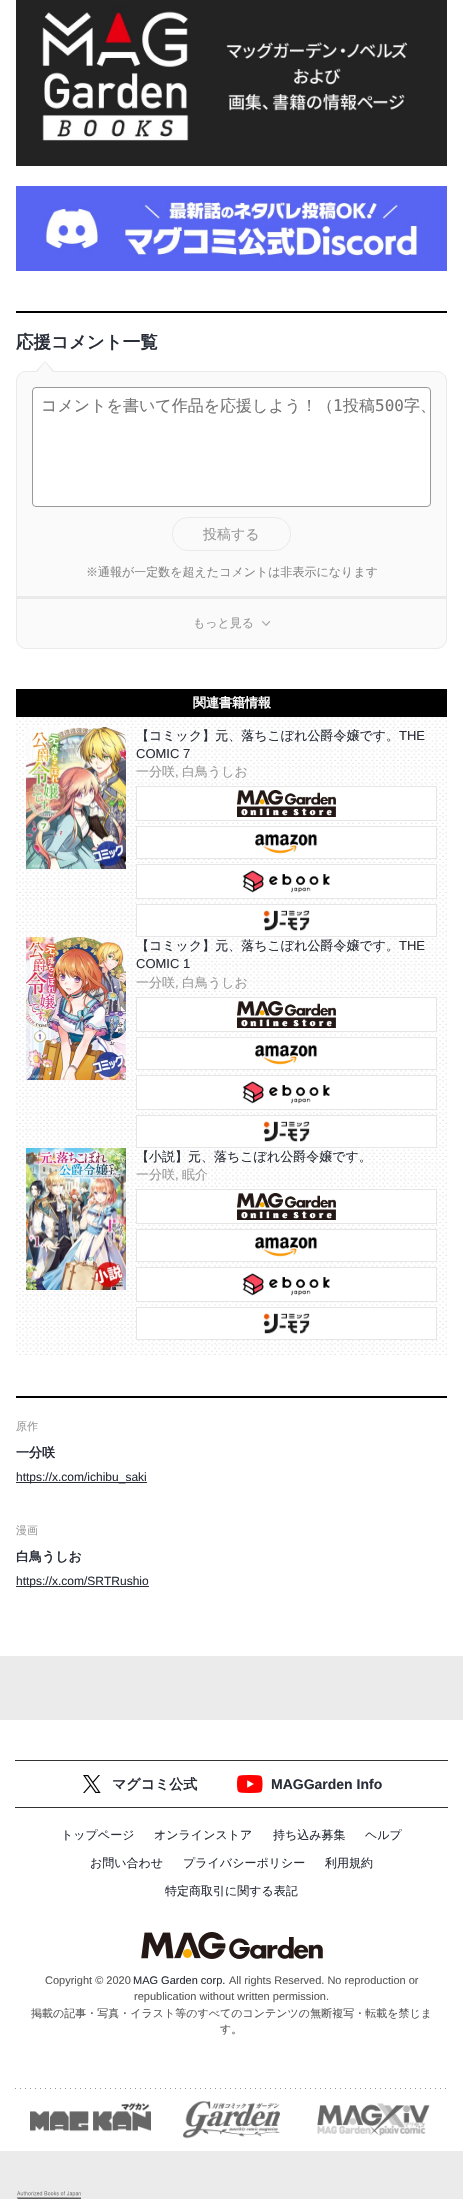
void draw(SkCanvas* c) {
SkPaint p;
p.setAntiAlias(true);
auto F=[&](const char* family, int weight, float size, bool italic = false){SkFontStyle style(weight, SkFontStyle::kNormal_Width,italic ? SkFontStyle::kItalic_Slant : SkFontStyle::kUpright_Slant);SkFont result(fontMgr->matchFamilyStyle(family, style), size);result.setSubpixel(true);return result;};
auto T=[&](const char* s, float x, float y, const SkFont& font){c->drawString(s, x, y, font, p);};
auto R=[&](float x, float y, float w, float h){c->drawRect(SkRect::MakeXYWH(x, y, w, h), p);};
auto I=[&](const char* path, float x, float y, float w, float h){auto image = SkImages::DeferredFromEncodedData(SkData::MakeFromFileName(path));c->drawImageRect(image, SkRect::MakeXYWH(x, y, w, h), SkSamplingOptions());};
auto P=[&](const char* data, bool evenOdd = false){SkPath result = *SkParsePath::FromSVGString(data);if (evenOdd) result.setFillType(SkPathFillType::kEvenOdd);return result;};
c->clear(0xffffffff);
I("1.png",16,0,431,166);
I("2.png",16,186,431,85);
p.setColor(0xff000000);
R(16,311,431,2);
auto f1 = F("WenQuanYi Zen Hei",700,17.5);
p.setColor(0xff292e38);
T("応援コメント一覧",16,348,f1);
p.setColor(0xfffafafa);
c->drawRoundRect(SkRect::MakeXYWH(16.5,371.5,430,277),9.5,9.5,p);
p.setStroke(true);
p.setStrokeWidth(1);
p.setColor(0xffeaeaea);
c->drawRoundRect(SkRect::MakeXYWH(16.5,371.5,430,277),9.5,9.5,p);
p.setStroke(false);
c->drawPath(P("M55 372h-20l10-11z"),p);
p.setColor(0xfffafafa);
c->drawPath(P("M53 372h-16l8-10z"),p);
p.setColor(0xffeaeaea);
R(17,596,429,3);
p.setColor(0xffffffff);
c->drawRoundRect(SkRect::MakeXYWH(32.5,387.5,398,119),3.5,3.5,p);
p.setStroke(true);
p.setColor(0xff999999);
c->drawRoundRect(SkRect::MakeXYWH(32.5,387.5,398,119),3.5,3.5,p);
auto f2 = F("WenQuanYi Zen Hei",500,16);
p.setStroke(false);
p.setColor(0xff757575);
T("コメントを書いて作品を応援しよう！（",41,411,f2);
auto f3 = F("DejaVu Sans Mono",400,16);
T("1",333,411,f3);
T("投稿",343,411,f2);
T("500",375,411,f3);
T("字、",404,411,f2);
p.setStroke(true);
p.setColor(0xffeaeaea);
c->drawRoundRect(SkRect::MakeXYWH(172.5,517.5,118,33),15.5,15.5,p);
auto f4 = F("WenQuanYi Zen Hei",500,14);
p.setStroke(false);
p.setColor(0xff999999);
T("投稿する",203,539,f4);
auto f5 = F("WenQuanYi Zen Hei",500,12);
p.setColor(0xff888888);
T("※通報が一定数を超えたコメントは非表示になります",86,576,f5);
p.setColor(0xff999999);
T("もっと見る",193,627,f5);
I("3.png",262,621,8,5);
I("4.png",16,717,431,638);
p.setColor(0xff000000);
R(16,689,431,28);
auto f6 = F("WenQuanYi Zen Hei",700,13);
p.setColor(0xffffffff);
T("関連書籍情報",193,707,f6);
I("5.png",26,727,100,142);
auto f7 = F("WenQuanYi Zen Hei",500,13);
p.setColor(0xff292e38);
T("【コミック】元、落ちこぼれ公爵令嬢です。",136,740,f7);
auto f8 = F("Liberation Sans",400,13);
T("THE",399,740,f8);
T("COMIC 7",136,758,f8);
p.setColor(0xff999999);
T("一分咲",136,776,f7);
T(",",175,776,f8);
T("白鳥うしお",182,776,f7);
p.setColor(0xffffffff);
c->drawRect(SkRect::MakeXYWH(136.5,786.5,300,34),p);
p.setStroke(true);
p.setColor(0xffe6e6e6);
c->drawRect(SkRect::MakeXYWH(136.5,786.5,300,34),p);
I("6.png",237,790,99,27);
p.setStroke(false);
p.setColor(0xffffffff);
R(137,828,299,29);
p.setStroke(true);
p.setColor(0xffe6e6e6);
c->drawRect(SkRect::MakeXYWH(136.5,826.5,300,32),p);
I("7.png",255,834,63,20);
p.setStroke(false);
p.setColor(0xffffffff);
c->drawRect(SkRect::MakeXYWH(136.5,864.5,300,34),p);
p.setStroke(true);
p.setColor(0xffe6e6e6);
c->drawRect(SkRect::MakeXYWH(136.5,864.5,300,34),p);
I("8.png",242,870,88,23);
p.setStroke(false);
p.setColor(0xffffffff);
c->drawRect(SkRect::MakeXYWH(136.5,904.5,300,32),p);
p.setStroke(true);
p.setColor(0xffe6e6e6);
c->drawRect(SkRect::MakeXYWH(136.5,904.5,300,32),p);
I("9.png",263,910,47,21);
I("10.png",26,937,100,143);
p.setStroke(false);
p.setColor(0xff292e38);
T("【コミック】元、落ちこぼれ公爵令嬢です。",136,950,f7);
T("THE",399,950,f8);
T("COMIC 1",136,968,f8);
p.setColor(0xff999999);
T("一分咲",136,987,f7);
T(",",175,987,f8);
T("白鳥うしお",182,987,f7);
p.setColor(0xffffffff);
c->drawRect(SkRect::MakeXYWH(136.5,997.5,300,34),p);
p.setStroke(true);
p.setColor(0xffe6e6e6);
c->drawRect(SkRect::MakeXYWH(136.5,997.5,300,34),p);
I("6.png",237,1001,99,27);
p.setStroke(false);
p.setColor(0xffffffff);
c->drawRect(SkRect::MakeXYWH(136.5,1037.5,300,32),p);
p.setStroke(true);
p.setColor(0xffe6e6e6);
c->drawRect(SkRect::MakeXYWH(136.5,1037.5,300,32),p);
I("11.png",255,1045,63,20);
p.setStroke(false);
p.setColor(0xffffffff);
c->drawRect(SkRect::MakeXYWH(136.5,1075.5,300,34),p);
p.setStroke(true);
p.setColor(0xffe6e6e6);
c->drawRect(SkRect::MakeXYWH(136.5,1075.5,300,34),p);
I("8.png",242,1081,88,23);
p.setStroke(false);
p.setColor(0xffffffff);
c->drawRect(SkRect::MakeXYWH(136.5,1115.5,300,32),p);
p.setStroke(true);
p.setColor(0xffe6e6e6);
c->drawRect(SkRect::MakeXYWH(136.5,1115.5,300,32),p);
I("9.png",263,1121,47,21);
I("12.png",26,1148,100,142);
p.setStroke(false);
p.setColor(0xff292e38);
T("【小説】元、落ちこぼれ公爵令嬢です。",136,1161,f7);
p.setColor(0xff999999);
T("一分咲",136,1179,f7);
T(",",175,1179,f8);
T("眠介",182,1179,f7);
p.setColor(0xffffffff);
R(137,1191,299,32);
p.setStroke(true);
p.setColor(0xffe6e6e6);
c->drawRect(SkRect::MakeXYWH(136.5,1189.5,300,34),p);
I("13.png",237,1193,99,27);
p.setStroke(false);
p.setColor(0xffffffff);
c->drawRect(SkRect::MakeXYWH(136.5,1229.5,300,32),p);
p.setStroke(true);
p.setColor(0xffe6e6e6);
c->drawRect(SkRect::MakeXYWH(136.5,1229.5,300,32),p);
I("11.png",255,1237,63,20);
p.setStroke(false);
p.setColor(0xffffffff);
c->drawRect(SkRect::MakeXYWH(136.5,1267.5,300,34),p);
p.setStroke(true);
p.setColor(0xffe6e6e6);
c->drawRect(SkRect::MakeXYWH(136.5,1267.5,300,34),p);
I("8.png",242,1273,88,23);
p.setStroke(false);
p.setColor(0xffffffff);
c->drawRect(SkRect::MakeXYWH(136.5,1307.5,300,32),p);
p.setStroke(true);
p.setColor(0xffe6e6e6);
c->drawRect(SkRect::MakeXYWH(136.5,1307.5,300,32),p);
I("9.png",263,1313,47,21);
p.setStroke(false);
p.setColor(0xff000000);
R(16,1396,431,2);
auto f9 = F("WenQuanYi Zen Hei",500,11);
p.setColor(0xff999999);
T("原作",16,1430,f9);
p.setColor(0xff292e38);
T("一分咲",16,1457,f6);
R(16,1482,131,1);
auto f10 = F("Liberation Sans",400,12);
T("https://x.com/ichibu_saki",16,1481,f10);
p.setColor(0xff999999);
T("漫画",16,1534,f9);
p.setColor(0xff292e38);
T("白鳥うしお",16,1561,f6);
R(16,1586,133,1);
T("https://x.com/SRTRushio",16,1585,f10);
p.setColor(0xffebebeb);
R(0,1656,463,64);
p.setColor(0xff333333);
R(15,1760,433,1);
R(15,1807,433,1);
I("14.png",83,1775,18,18);
auto f11 = F("WenQuanYi Zen Hei",700,14);
p.setColor(0xff292e38);
T("マグコミ公式",112,1789,f11);
I("15.png",237,1775,26,18);
auto f12 = F("Liberation Sans",700,14);
T("MAGGarden Info",271,1789,f12);
T("トップページ",61,1839,f5);
T("オンラインストア",154,1839,f5);
T("持ち込み募集",273,1839,f5);
T("ヘルプ",365,1839,f5);
T("お問い合わせ",90,1867,f5);
T("プライバシーポリシー",183,1867,f5);
T("利用規約",325,1867,f5);
T("特定商取引に関する表記",165,1895,f5);
I("16.png",141,1932,182,27);
auto f13 = F("Liberation Sans",400,11);
p.setColor(0xff595959);
T("Copyright © 2020",45,1984,f13);
p.setColor(0xff292e38);
T("MAG Garden corp.",133,1984,f13);
p.setColor(0xff595959);
T("All rights Reserved. No reproduction or",229,1984,f13);
T("republication without written permission.",134,2000,f13);
T("掲載の記事・写真・イラスト等のすべてのコンテンツの無断複写・転載を禁じま",31,2017,f9);
T("す。",220,2033,f9);
I("17.png",15,2088,431,1);
I("18.png",30,2102,121,30);
I("19.png",183,2101,97,38);
I("20.png",317,2103,113,33);
p.setColor(0xffebebeb);
R(0,2151,463,48);
I("21.png",16,2191,65,8);
}
